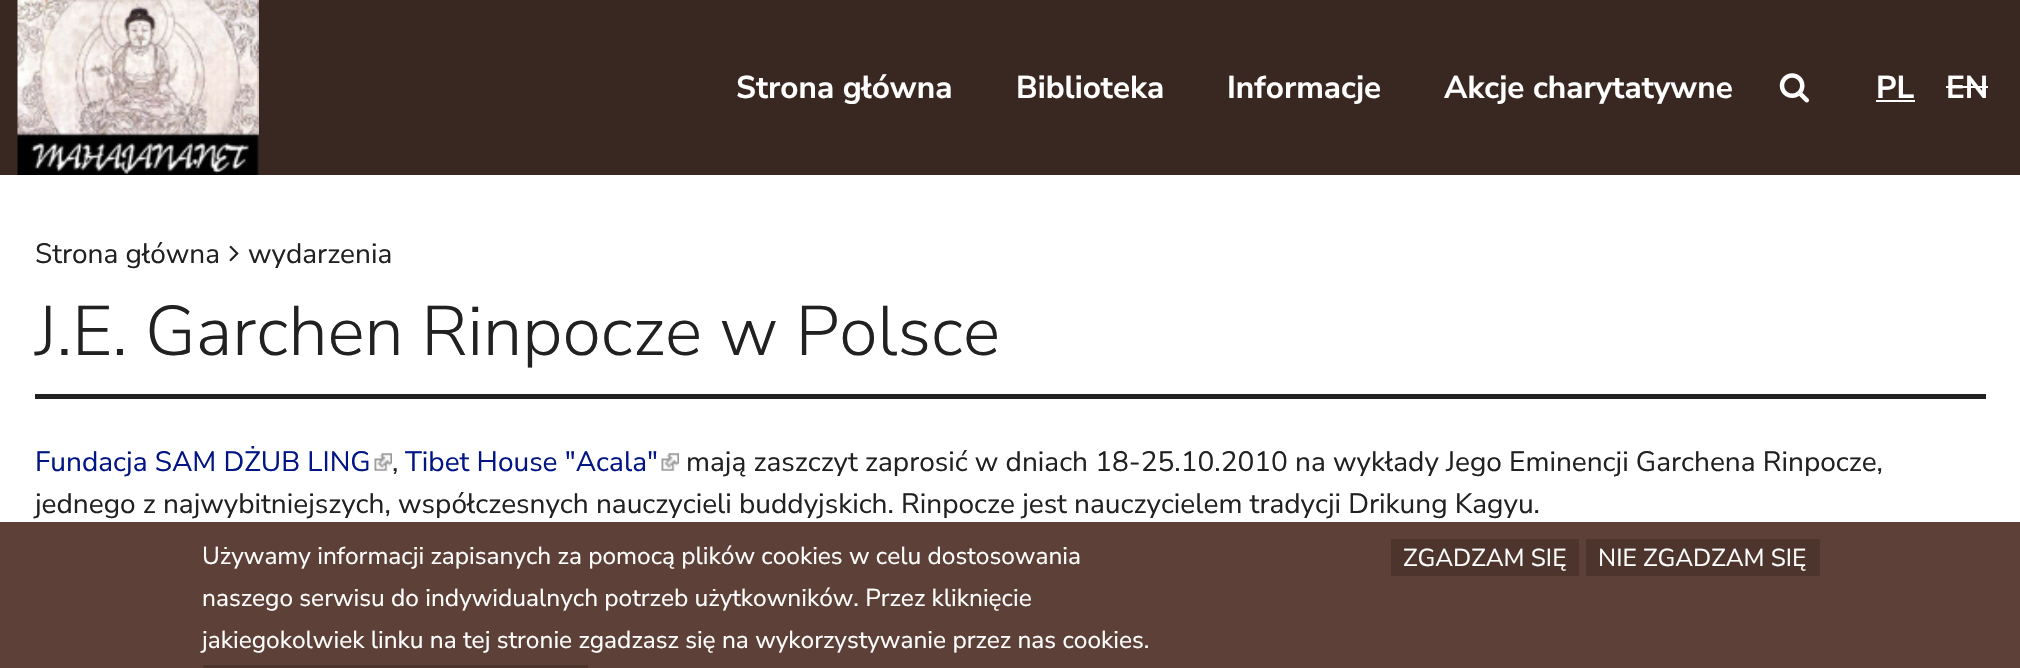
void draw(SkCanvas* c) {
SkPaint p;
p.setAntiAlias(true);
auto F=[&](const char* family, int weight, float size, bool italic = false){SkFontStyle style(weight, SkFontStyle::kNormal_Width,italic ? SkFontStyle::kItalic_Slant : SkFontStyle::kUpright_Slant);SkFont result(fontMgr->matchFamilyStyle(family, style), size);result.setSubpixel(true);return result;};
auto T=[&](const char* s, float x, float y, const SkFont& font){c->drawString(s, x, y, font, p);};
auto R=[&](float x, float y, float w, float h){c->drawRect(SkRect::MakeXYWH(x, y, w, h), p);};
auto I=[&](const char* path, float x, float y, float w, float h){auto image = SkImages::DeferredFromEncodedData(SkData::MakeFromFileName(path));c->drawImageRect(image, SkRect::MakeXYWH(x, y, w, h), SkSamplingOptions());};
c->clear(0xffffffff);
p.setColor(0xff392822);
R(0,0,2020,175);
I("1.png",17,0,242,175);
auto f1 = F("Nunito Sans",700,31.5);
p.setColor(0xffffffff);
T("Strona główna",736,98,f1);
T("Biblioteka",1016,98,f1);
T("Informacje",1227,98,f1);
T("Akcje charytatywne",1444,98,f1);
I("2.png",1779,73,30,30);
T("PL",1876,98,f1);
R(1876,100,39,2);
T("EN",1946,98,f1);
R(1946,86,42,2);
auto f2 = F("Nunito Sans",400,28);
p.setColor(0xff212121);
T("Strona główna",35,263,f2);
I("3.png",229,245,10,17);
T("wydarzenia",248,263,f2);
R(35,394,1951,5);
auto f3 = F("Nunito Sans",300,70);
T("J.E. Garchen Rinpocze w Polsce",35,355,f3);
p.setColor(0xff011584);
T("Fundacja SAM DŻUB LING",35,471,f2);
I("4.png",374,453,18,18);
p.setColor(0xff212121);
T(",",392,471,f2);
p.setColor(0xff011584);
T("Tibet House \"Acala\"",405,471,f2);
I("5.png",661,453,18,18);
p.setColor(0xff212121);
T("mają zaszczyt zaprosić w dniach 18-25.10.2010 na wykłady Jego Eminencji Garchena Rinpocze,",686,471,f2);
T("jednego z najwybitniejszych, współczesnych nauczycieli buddyjskich. Rinpocze jest nauczycielem tradycji Drikung Kagyu.",35,513,f2);
p.setColor(0xff5d4037);
R(0,522,2020,146);
auto f4 = F("Nunito Sans",400,24.5);
p.setColor(0xffffffff);
T("Używamy informacji zapisanych za pomocą plików cookies w celu dostosowania",202,564,f4);
T("naszego serwisu do indywidualnych potrzeb użytkowników. Przez kliknięcie",202,606,f4);
T("jakiegokolwiek linku na tej stronie zgadzasz się na wykorzystywanie przez nas cookies.",202,648,f4);
p.setColor(0xff4d352e);
R(203,665,385,3);
R(1391,539,188,37);
p.setColor(0xffffffff);
T("ZGADZAM SIĘ",1403,566,f4);
p.setColor(0xff4d352e);
R(1586,539,234,37);
p.setColor(0xffffffff);
T("NIE ZGADZAM SIĘ",1598,566,f4);
}
